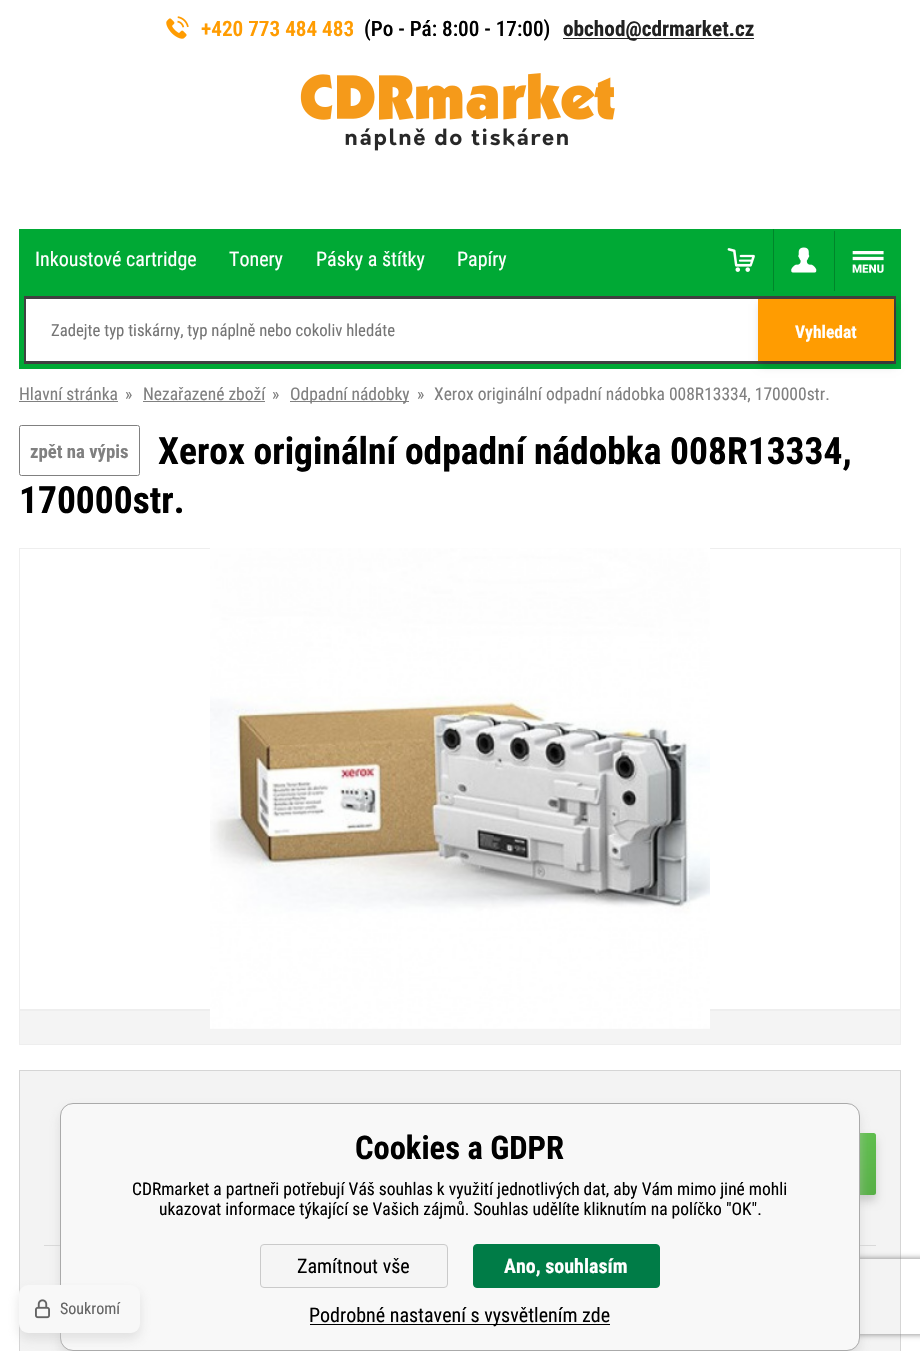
void draw(SkCanvas* c) {
SkPaint p;
p.setAntiAlias(true);
auto F=[&](const char* family, int weight, float size, bool italic = false){SkFontStyle style(weight, SkFontStyle::kNormal_Width,italic ? SkFontStyle::kItalic_Slant : SkFontStyle::kUpright_Slant);SkFont result(fontMgr->matchFamilyStyle(family, style), size);result.setSubpixel(true);return result;};
auto T=[&](const char* s, float x, float y, const SkFont& font){c->drawString(s, x, y, font, p);};
auto R=[&](float x, float y, float w, float h){c->drawRect(SkRect::MakeXYWH(x, y, w, h), p);};
auto Q=[&](float x, float y, float w, float h, float radius){c->drawRoundRect(SkRect::MakeXYWH(x, y, w, h), radius, radius, p);};
auto I=[&](const char* path, float x, float y, float w, float h){auto image = SkImages::DeferredFromEncodedData(SkData::MakeFromFileName(path));c->drawImageRect(image, SkRect::MakeXYWH(x, y, w, h), SkSamplingOptions());};
auto P=[&](const char* data, bool evenOdd = false){SkPath result = *SkParsePath::FromSVGString(data);if (evenOdd) result.setFillType(SkPathFillType::kEvenOdd);return result;};
c->clear(0xffffffff);
I("1.png",166,16,23,23);
auto f1 = F("Roboto Condensed",600,21.25);
p.setColor(0xffff9c01);
T("+420 773 484 483",201,36,f1);
auto f2 = F("Roboto Condensed",500,21.25);
p.setColor(0xff000000);
T("(Po - Pá: 8:00 - 17:00)",364,36,f2);
p.setColor(0xff222222);
R(563,38,191,1);
auto f3 = F("Roboto Condensed",700,21.25);
T("obchod@cdrmarket.cz",563,36,f3);
I("2.png",300,73,315,78);
p.setColor(0xff00a935);
R(19,229,882,62);
auto f4 = F("Roboto Condensed",400,20);
p.setColor(0xffffffff);
T("Inkoustové cartridge",35,266,f4);
T("Tonery",229,266,f4);
T("Pásky a štítky",316,266,f4);
T("Papíry",457,266,f4);
p.setColor(0xff00852a);
R(773,229,1,62);
I("3.png",727,248,28,24);
R(834,231,1,60);
I("4.png",791,247,26,26);
I("5.png",852,251,32,22);
p.setStroke(true);
p.setStrokeWidth(5);
p.setColor(0xff00a935);
c->drawRect(SkRect::MakeXYWH(21.5,293.5,877,73),p);
p.setStrokeWidth(3);
p.setColor(0xff404040);
c->drawRect(SkRect::MakeXYWH(25.5,297.5,869,65),p);
p.setStroke(false);
p.setColor(0xffffffff);
R(26,299,1,62);
auto f5 = F("Roboto Condensed",400,16.7);
p.setColor(0xff757575);
T("Zadejte typ tiskárny, typ náplně nebo cokoliv hledáte",51,336,f5);
p.setColor(0x29000000);
p.setMaskFilter(SkMaskFilter::MakeBlur(kNormal_SkBlurStyle, 4));
c->drawRect(SkRect::MakeXYWH(760,304,136,62),p);
p.setMaskFilter(nullptr);
p.setColor(0xffff9c01);
R(758,299,136,62);
auto f6 = F("Roboto Condensed",700,17.5);
p.setColor(0xffffffff);
T("Vyhledat",795,338,f6);
auto f7 = F("Roboto Condensed",400,17.5);
p.setColor(0xff808080);
T("Hlavní stránka",19,400,f7);
R(19,401,99,1);
T("»",125,400,f7);
T("Nezařazené zboží",143,400,f7);
R(143,401,122,1);
T("»",272,400,f7);
R(290,401,119,1);
T("Odpadní nádobky",290,400,f7);
T("»",417,400,f7);
T("Xerox originální odpadní nádobka 008R13334, 170000str.",434,400,f7);
auto f8 = F("Roboto Condensed",700,37.5);
p.setColor(0xff000000);
T("Xerox originální odpadní nádobka 008R13334,",158,464,f8);
T("170000str.",19,513,f8);
p.setStroke(true);
p.setStrokeWidth(1);
p.setColor(0xff808080);
c->drawRoundRect(SkRect::MakeXYWH(19.5,425.5,120,50),2,2,p);
auto f9 = F("Roboto Condensed",700,18.75);
p.setStroke(false);
T("zpět na výpis",30,458,f9);
p.setStroke(true);
p.setColor(0xffeeeeee);
c->drawRect(SkRect::MakeXYWH(19.5,548.5,881,461),p);
p.setStroke(false);
p.setColor(0xfff4f4f4);
c->drawRect(SkRect::MakeXYWH(19.5,1010.5,881,34),p);
p.setStroke(true);
p.setColor(0xffeeeeee);
c->drawRect(SkRect::MakeXYWH(19.5,1010.5,881,34),p);
I("6.png",210,548,500,481);
p.setStroke(false);
p.setColor(0xfff3f3f3);
c->drawRect(SkRect::MakeXYWH(19.5,1070.5,881,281),p);
p.setStroke(true);
p.setColor(0xffd5d5d5);
c->drawRect(SkRect::MakeXYWH(19.5,1070.5,881,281),p);
p.setStroke(false);
p.setColor(0xffd9d9d9);
R(44,1245,832,1);
p.setColor(0x29000000);
p.setMaskFilter(SkMaskFilter::MakeBlur(kNormal_SkBlurStyle, 4.5));
c->drawRoundRect(SkRect::MakeXYWH(755,1139,121,62),2.5,2.5,p);
p.setMaskFilter(nullptr);
{
const SkColor colors[] = {0xff57af46,0xff61c24f};
const float stops[] = {0,1};
const SkPoint ends[] = {{822,1204}, {809,1124}};
p.setShader(SkGradientShader::MakeLinear(ends, colors, stops, 2, SkTileMode::kClamp));
p.setAlpha(255);
}
Q(755,1133,121,62,2.5);
p.setShader(nullptr);
p.setColor(0x80c8c8c8);
p.setMaskFilter(SkMaskFilter::MakeBlur(kNormal_SkBlurStyle, 6));
c->drawRoundRect(SkRect::MakeXYWH(60,1109,800,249),13,13,p);
p.setMaskFilter(nullptr);
c->save();
c->clipPath(P("M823 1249h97v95h-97zm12.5 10h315c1.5 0 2.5 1 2.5 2.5v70c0 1.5-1 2.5-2.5 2.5h-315c-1.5 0-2.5-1-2.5-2.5v-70c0-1.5 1-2.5 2.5-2.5z",true),true);
p.setColor(0xff808080);
p.setMaskFilter(SkMaskFilter::MakeBlur(kNormal_SkBlurStyle, 3));
c->drawRoundRect(SkRect::MakeXYWH(833,1259,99,75),2.5,2.5,p);
p.setMaskFilter(nullptr);
c->restore();
p.setColor(0xfff8f8f8);
c->drawRoundRect(SkRect::MakeXYWH(60.5,1103.5,799,247),12.5,12.5,p);
p.setStroke(true);
p.setColor(0xffaaaaaa);
c->drawRoundRect(SkRect::MakeXYWH(60.5,1103.5,799,247),12.5,12.5,p);
p.setStroke(false);
p.setColor(0x80c8c8c8);
p.setMaskFilter(SkMaskFilter::MakeBlur(kNormal_SkBlurStyle, 6));
c->drawRoundRect(SkRect::MakeXYWH(19,1291,121,48),9,9,p);
p.setMaskFilter(nullptr);
p.setColor(0xfff8f8f8);
Q(19,1285,121,48,9);
I("7.png",35,1299,15,20);
auto f10 = F("Roboto Condensed",400,16);
p.setColor(0xff646464);
T("Soukromí",60,1314,f10);
auto f11 = F("Roboto Condensed",700,32.5);
p.setColor(0xff000000);
T("Cookies a GDPR",355,1159,f11);
T("CDRmarket a partneři potřebují Váš souhlas k využití jednotlivých dat, aby Vám mimo jiné mohli",132,1195,f7);
T("ukazovat informace týkající se Vašich zájmů. Souhlas udělíte kliknutím na políčko \"OK\".",159,1215,f7);
p.setColor(0xfff5f5f5);
c->drawRoundRect(SkRect::MakeXYWH(260.5,1244.5,187,43),3.5,3.5,p);
p.setStroke(true);
p.setColor(0xffcacaca);
c->drawRoundRect(SkRect::MakeXYWH(260.5,1244.5,187,43),3.5,3.5,p);
p.setStroke(false);
p.setColor(0xff000000);
T("Zamítnout vše",297,1273,f4);
p.setColor(0xff007c47);
c->drawRoundRect(SkRect::MakeXYWH(473.5,1244.5,186,43),3.5,3.5,p);
p.setStroke(true);
c->drawRoundRect(SkRect::MakeXYWH(473.5,1244.5,186,43),3.5,3.5,p);
auto f12 = F("Roboto Condensed",700,20);
p.setStroke(false);
p.setColor(0xffffffff);
T("Ano, souhlasím",504,1273,f12);
p.setColor(0xff000000);
R(310,1324,300,1);
T("Podrobné nastavení s vysvětlením zde",309,1322,f4);
}
